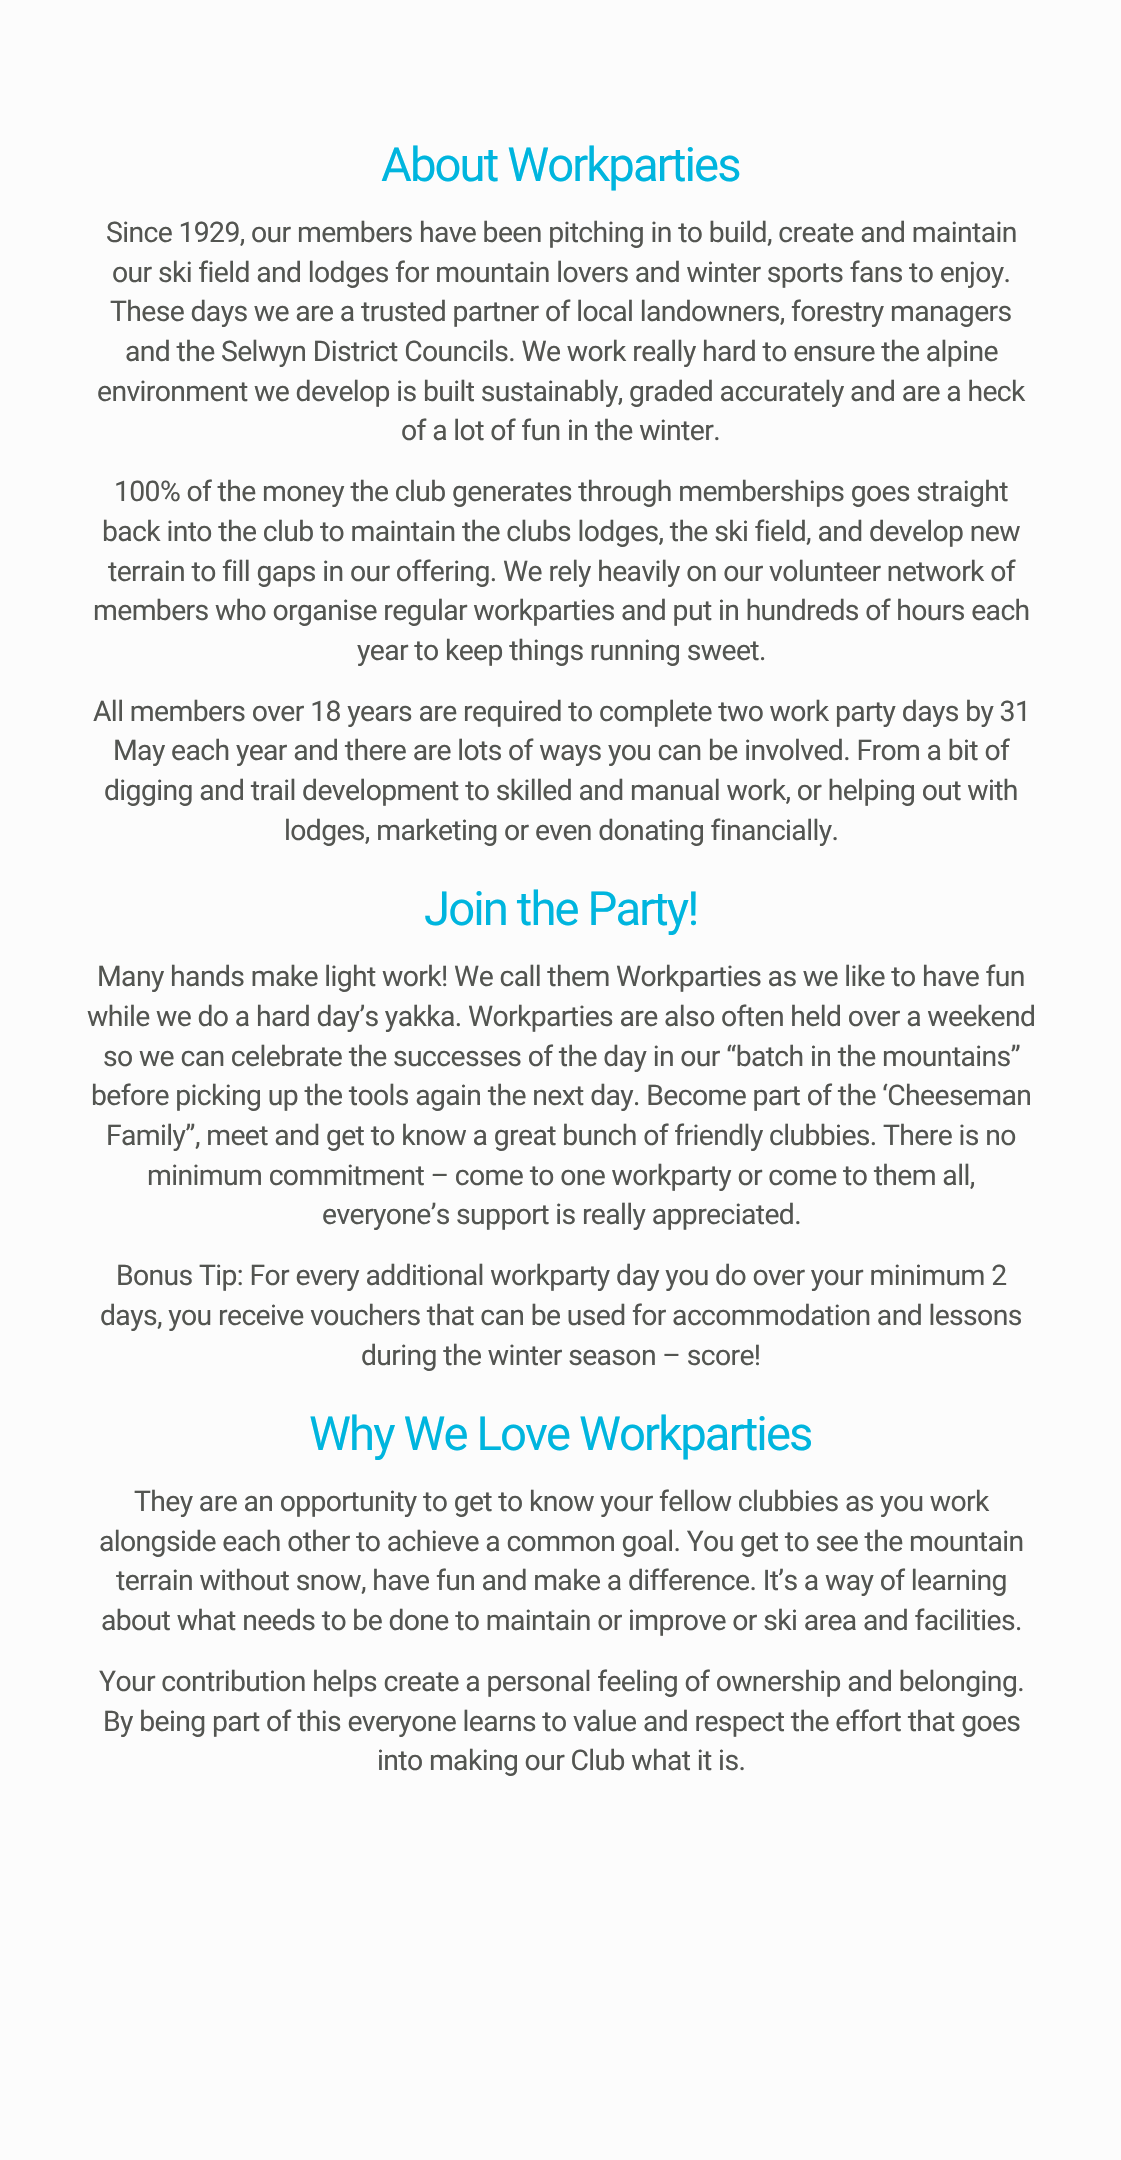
void draw(SkCanvas* c) {
SkPaint p;
p.setAntiAlias(true);
auto F=[&](const char* family, int weight, float size, bool italic = false){SkFontStyle style(weight, SkFontStyle::kNormal_Width,italic ? SkFontStyle::kItalic_Slant : SkFontStyle::kUpright_Slant);SkFont result(fontMgr->matchFamilyStyle(family, style), size);result.setSubpixel(true);return result;};
auto L=[&](const char* s, float x, float y, const SkFont& font, const SkPaint& ink, float letter, float word){std::vector<SkGlyphID> glyphs(font.countText(s, strlen(s), SkTextEncoding::kUTF8));std::vector<float> xs(glyphs.size());font.textToGlyphs(s, strlen(s), SkTextEncoding::kUTF8, glyphs);font.getXPos(glyphs, xs, x);float extra = 0;for (size_t i = 0; i < glyphs.size(); i++) {xs[i] += extra;extra += letter + word * (glyphs[i] == font.unicharToGlyph(' '));}c->drawTextBlob(SkTextBlob::MakeFromPosHGlyphs(glyphs, xs, y, font), 0, 0, ink);};
c->clear(0xfffcfcfc);
auto f1 = F("Roboto",400,47.25);
p.setColor(0xff00b5de);
L("About Workparties",381,181,f1,p,-1.9,0);
auto f2 = F("Roboto",400,28.35);
p.setColor(0xff535551);
L("Since 1929, our members have been pitching in to build, create and maintain",106,242,f2,p,-.63,0);
L("our ski field and lodges for mountain lovers and winter sports fans to enjoy.",112,282,f2,p,-.63,0);
L("These days we are a trusted partner of local landowners, forestry managers",110,321,f2,p,-.63,0);
L("and the Selwyn District Councils. We work really hard to ensure the alpine",125,361,f2,p,-.63,0);
L("environment we develop is built sustainably, graded accurately and are a heck",97,401,f2,p,-.63,0);
L("of a lot of fun in the winter.",401,440,f2,p,-.63,0);
L("100% of the money the club generates through memberships goes straight",114,501,f2,p,-.63,0);
L("back into the club to maintain the clubs lodges, the ski field, and develop new",102,541,f2,p,-.63,0);
L("terrain to fill gaps in our offering. We rely heavily on our volunteer network of",108,581,f2,p,-.63,0);
L("members who organise regular workparties and put in hundreds of hours each",93,620,f2,p,-.63,0);
L("year to keep things running sweet.",357,660,f2,p,-.63,0);
L("All members over 18 years are required to complete two work party days by 31",93,721,f2,p,-.63,0);
L("May each year and there are lots of ways you can be involved. From a bit of",113,760,f2,p,-.63,0);
L("digging and trail development to skilled and manual work, or helping out with",104,800,f2,p,-.63,0);
L("lodges, marketing or even donating financially.",284,840,f2,p,-.63,0);
p.setColor(0xff00b5de);
L("Join the Party!",424,925,f1,p,-1.9,0);
p.setColor(0xff535551);
L("Many hands make light work! We call them Workparties as we like to have fun",97,986,f2,p,-.63,0);
L("while we do a hard day’s yakka. Workparties are also often held over a weekend",87,1026,f2,p,-.63,0);
L("so we can celebrate the successes of the day in our “batch in the mountains”",103,1066,f2,p,-.63,0);
L("before picking up the tools again the next day. Become part of the ‘Cheeseman",91,1105,f2,p,-.63,0);
L("Family”, meet and get to know a great bunch of friendly clubbies. There is no",106,1145,f2,p,-.63,0);
L("minimum commitment – come to one workparty or come to them all,",147,1185,f2,p,-.63,0);
L("everyone’s support is really appreciated.",322,1224,f2,p,-.63,0);
L("Bonus Tip: For every additional workparty day you do over your minimum 2",116,1285,f2,p,-.63,0);
L("days, you receive vouchers that can be used for accommodation and lessons",100,1325,f2,p,-.63,0);
L("during the winter season – score!",361,1365,f2,p,-.63,0);
p.setColor(0xff00b5de);
L("Why We Love Workparties",309,1450,f1,p,-1.9,0);
p.setColor(0xff535551);
L("They are an opportunity to get to know your fellow clubbies as you work",134,1511,f2,p,-.63,0);
L("alongside each other to achieve a common goal. You get to see the mountain",99,1551,f2,p,-.63,0);
L("terrain without snow, have fun and make a difference. It’s a way of learning",116,1590,f2,p,-.63,0);
L("about what needs to be done to maintain or improve or ski area and facilities.",101,1630,f2,p,-.63,0);
L("Your contribution helps create a personal feeling of ownership and belonging.",99,1691,f2,p,-.63,0);
L("By being part of this everyone learns to value and respect the effort that goes",103,1731,f2,p,-.63,0);
L("into making our Club what it is.",377,1770,f2,p,-.63,0);
}
